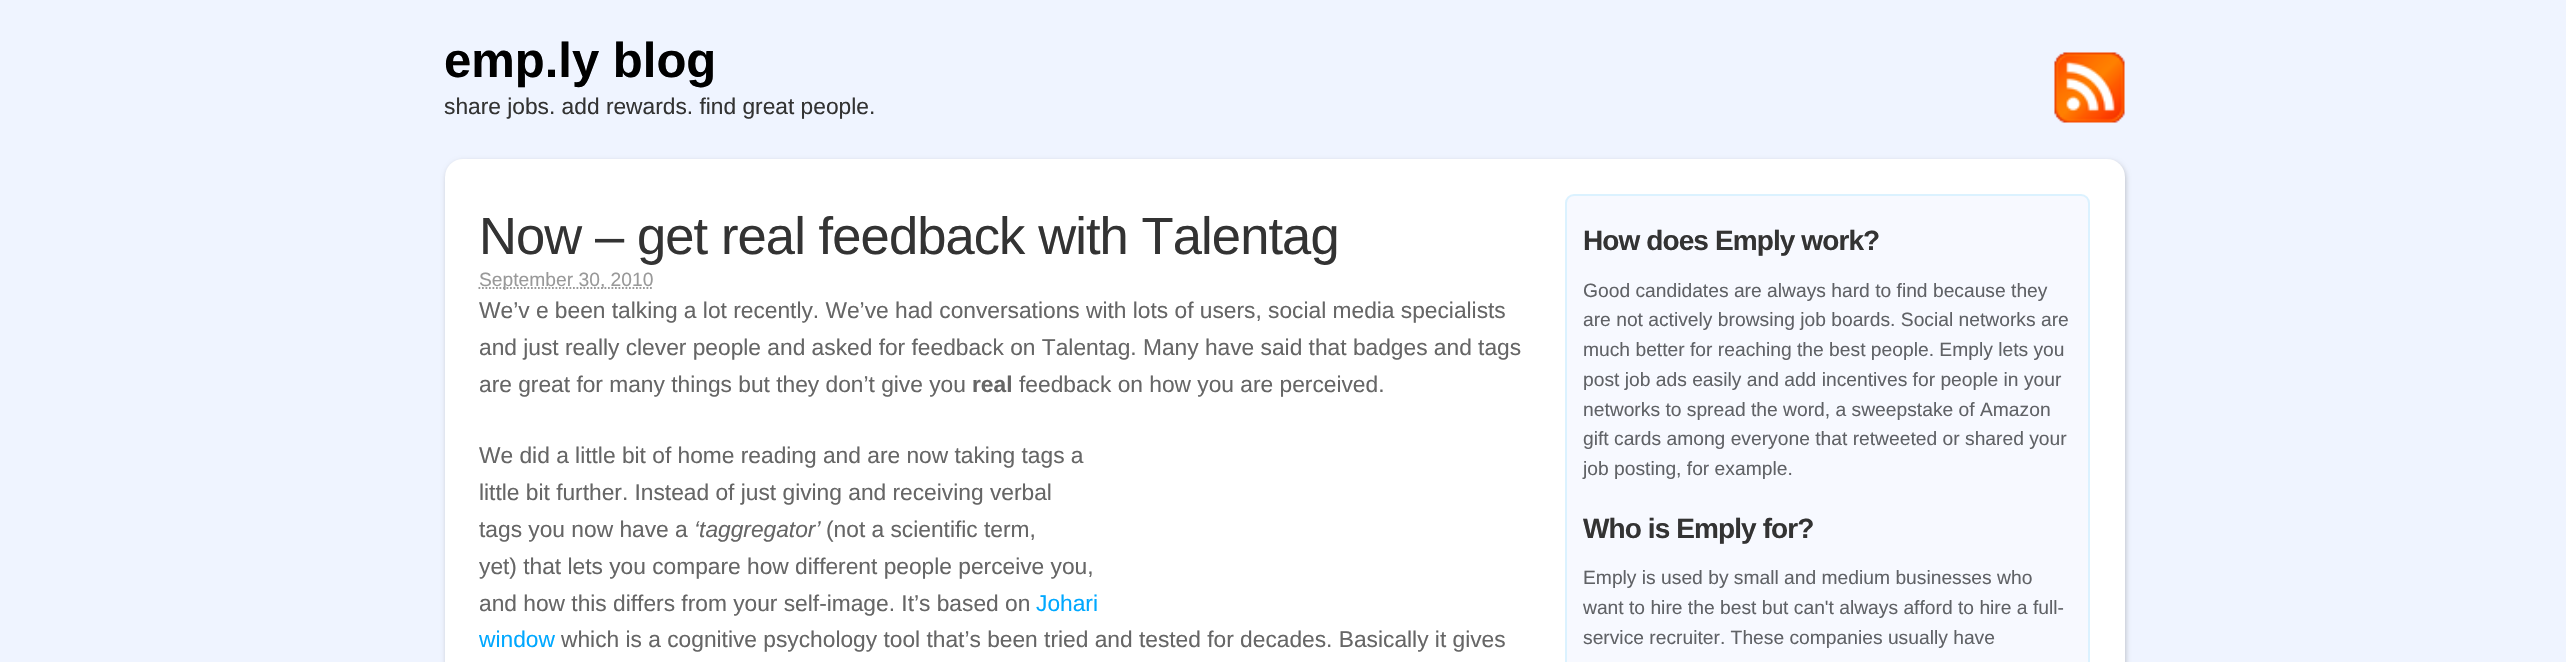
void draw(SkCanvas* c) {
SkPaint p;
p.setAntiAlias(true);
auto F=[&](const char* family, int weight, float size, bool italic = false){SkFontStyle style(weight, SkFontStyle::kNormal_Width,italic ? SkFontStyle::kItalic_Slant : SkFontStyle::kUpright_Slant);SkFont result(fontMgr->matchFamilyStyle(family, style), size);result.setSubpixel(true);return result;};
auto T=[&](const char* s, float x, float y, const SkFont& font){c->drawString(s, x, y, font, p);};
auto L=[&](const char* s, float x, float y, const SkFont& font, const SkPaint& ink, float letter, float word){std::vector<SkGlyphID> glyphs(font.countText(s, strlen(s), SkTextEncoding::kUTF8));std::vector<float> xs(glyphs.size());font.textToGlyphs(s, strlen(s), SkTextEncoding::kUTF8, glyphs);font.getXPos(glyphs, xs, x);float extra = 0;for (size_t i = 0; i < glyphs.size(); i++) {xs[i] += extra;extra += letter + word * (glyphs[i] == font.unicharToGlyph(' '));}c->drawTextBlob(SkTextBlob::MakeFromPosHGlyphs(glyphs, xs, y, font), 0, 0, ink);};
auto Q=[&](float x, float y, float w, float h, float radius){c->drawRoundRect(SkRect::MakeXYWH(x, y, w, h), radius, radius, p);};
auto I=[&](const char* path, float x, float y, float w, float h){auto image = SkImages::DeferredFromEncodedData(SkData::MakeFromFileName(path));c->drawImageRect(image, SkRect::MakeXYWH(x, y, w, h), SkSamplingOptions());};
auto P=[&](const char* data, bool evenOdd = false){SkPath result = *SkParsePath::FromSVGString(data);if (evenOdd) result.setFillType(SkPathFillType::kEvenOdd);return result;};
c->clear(0xffeff4ff);
auto f1 = F("Liberation Sans",700,49);
p.setColor(0xff000000);
T("emp.ly blog",444,77,f1);
I("1.png",2054,52,71,71);
auto f2 = F("Liberation Sans",400,22.75);
p.setColor(0xff333333);
T("share jobs. add rewards. find great people.",444,114,f2);
p.setColor(0x33000000);
p.setMaskFilter(SkMaskFilter::MakeBlur(kNormal_SkBlurStyle, 2.5));
c->drawRoundRect(SkRect::MakeXYWH(446,161,1680,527),18,18,p);
p.setMaskFilter(nullptr);
p.setColor(0xffffffff);
Q(445,159,1680,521,18);
auto f3 = F("Liberation Sans",400,52.5);
p.setColor(0xff333333);
L("Now – get real feedback with Talentag",479,254,f3,p,-.9,0);
p.setStroke(true);
p.setStrokeWidth(1.8);
p.setColor(0xff999999);
p.setPathEffect(SkDashPathEffect::Make({{1.75f,1.75f}}, 0));
c->drawPath(P("M478.5 288h174.5"),p);
p.setPathEffect(nullptr);
auto f4 = F("Liberation Sans",400,19.25);
p.setStroke(false);
T("September 30, 2010",479,286,f4);
p.setColor(0xff666666);
T("We’v e been talking a lot recently. We’ve had conversations with lots of users, social media specialists",479,318,f2);
T("and just really clever people and asked for feedback on Talentag. Many have said that badges and tags",479,355,f2);
T("are great for many things but they don’t give you",479,392,f2);
auto f5 = F("Liberation Sans",700,22.75);
T("real",972,392,f5);
T("feedback on how you are perceived.",1019,392,f2);
T("We did a little bit of home reading and are now taking tags a",479,463,f2);
T("little bit further. Instead of just giving and receiving verbal",479,500,f2);
T("tags you now have a",479,537,f2);
auto f6 = F("Liberation Sans",400,22.75,true);
T("‘taggregator’",694,537,f6);
T("(not a scientific term,",826,537,f2);
T("yet) that lets you compare how different people perceive you,",479,574,f2);
T("and how this differs from your self-image. It’s based on",479,611,f2);
p.setColor(0xff00a8ff);
T("Johari",1036,611,f2);
T("window",479,647,f2);
p.setColor(0xff666666);
T("which is a cognitive psychology tool that’s been tried and tested for decades. Basically it gives",561,647,f2);
p.setColor(0xfff7f9ff);
c->drawRoundRect(SkRect::MakeXYWH(1566,195,523,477),8,8,p);
p.setStroke(true);
p.setStrokeWidth(2);
p.setColor(0xffdbf2ff);
c->drawRoundRect(SkRect::MakeXYWH(1566,195,523,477),8,8,p);
auto f7 = F("Liberation Sans",700,28);
p.setStroke(false);
p.setColor(0xff333333);
L("How does Emply work?",1583,250,f7,p,-.9,0);
p.setColor(0xff606266);
T("Good candidates are always hard to find because they",1583,297,f4);
T("are not actively browsing job boards. Social networks are",1583,326,f4);
T("much better for reaching the best people. Emply lets you",1583,356,f4);
T("post job ads easily and add incentives for people in your",1583,386,f4);
T("networks to spread the word, a sweepstake of Amazon",1583,416,f4);
T("gift cards among everyone that retweeted or shared your",1583,445,f4);
T("job posting, for example.",1583,475,f4);
p.setColor(0xff333333);
L("Who is Emply for?",1583,538,f7,p,-.9,0);
p.setColor(0xff606266);
T("Emply is used by small and medium businesses who",1583,584,f4);
T("want to hire the best but can't always afford to hire a full-",1583,614,f4);
T("service recruiter. These companies usually have",1583,644,f4);
}
